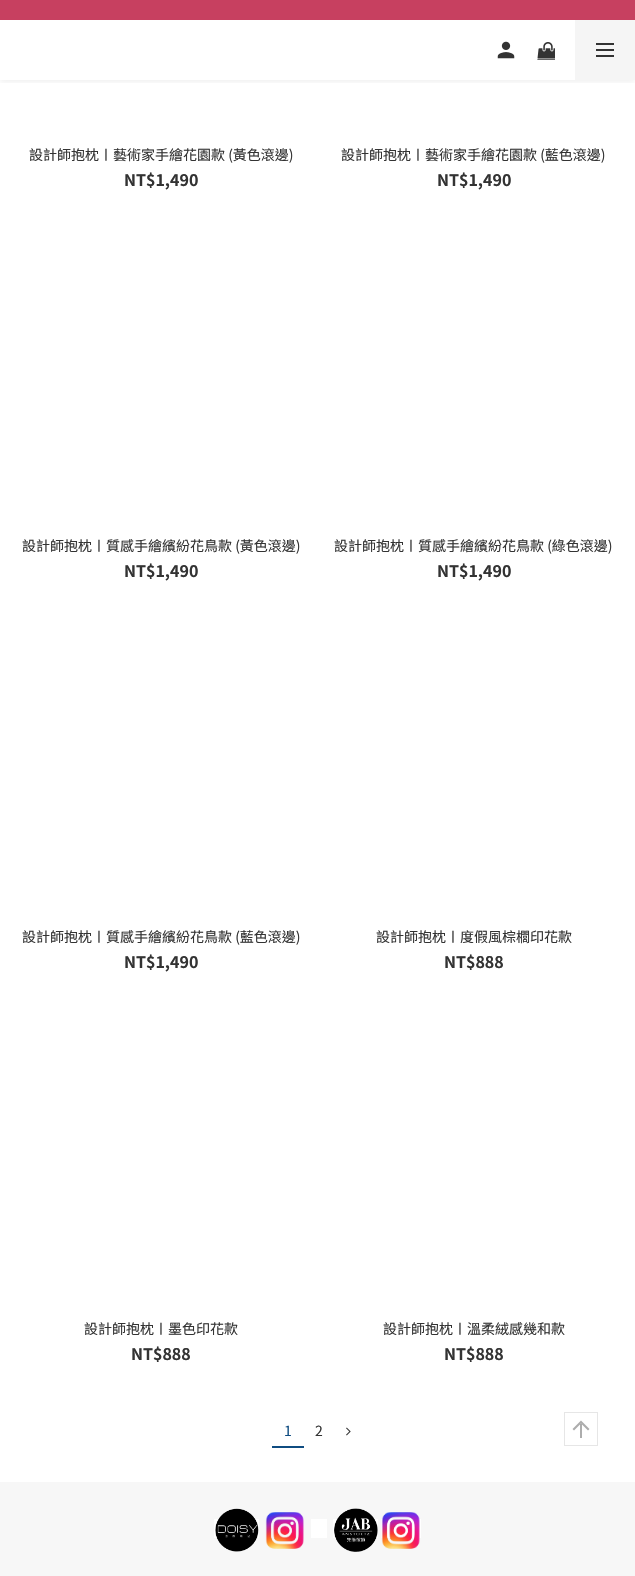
void draw(SkCanvas* c) {
SkPaint p;
p.setAntiAlias(true);
auto F=[&](const char* family, int weight, float size, bool italic = false){SkFontStyle style(weight, SkFontStyle::kNormal_Width,italic ? SkFontStyle::kItalic_Slant : SkFontStyle::kUpright_Slant);SkFont result(fontMgr->matchFamilyStyle(family, style), size);result.setSubpixel(true);return result;};
auto T=[&](const char* s, float x, float y, const SkFont& font){c->drawString(s, x, y, font, p);};
auto R=[&](float x, float y, float w, float h){c->drawRect(SkRect::MakeXYWH(x, y, w, h), p);};
auto I=[&](const char* path, float x, float y, float w, float h){auto image = SkImages::DeferredFromEncodedData(SkData::MakeFromFileName(path));c->drawImageRect(image, SkRect::MakeXYWH(x, y, w, h), SkSamplingOptions());};
auto P=[&](const char* data, bool evenOdd = false){SkPath result = *SkParsePath::FromSVGString(data);if (evenOdd) result.setFillType(SkPathFillType::kEvenOdd);return result;};
c->clear(0xffffffff);
p.setColor(0xffc74060);
R(0,0,635,20);
c->save();
c->clipRect(SkRect::MakeXYWH(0,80,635,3));
p.setColor(0x0f000000);
p.setMaskFilter(SkMaskFilter::MakeBlur(kNormal_SkBlurStyle, 3));
c->drawRect(SkRect::MakeXYWH(0,22,635,60),p);
p.setMaskFilter(nullptr);
c->restore();
I("1.png",497,41,18,18);
I("2.png",537,42,18,18);
p.setColor(0xfff5f5f5);
R(575,20,60,60);
p.setColor(0xff333333);
R(596,49,18,2);
R(596,43,18,2);
R(596,55,18,2);
auto f1 = F("Noto Sans TC",400,14);
T("設計師抱枕〡藝術家手繪花園款 (黃色滾邊)",29,160,f1);
auto f2 = F("Noto Sans TC",700,16);
T("NT$1,490",124,186,f2);
T("設計師抱枕〡藝術家手繪花園款 (藍色滾邊)",341,160,f1);
T("NT$1,490",437,186,f2);
T("設計師抱枕〡質感手繪繽紛花鳥款 (黃色滾邊)",22,551,f1);
T("NT$1,490",124,577,f2);
T("設計師抱枕〡質感手繪繽紛花鳥款 (綠色滾邊)",334,551,f1);
T("NT$1,490",437,577,f2);
T("設計師抱枕〡質感手繪繽紛花鳥款 (藍色滾邊)",22,942,f1);
T("NT$1,490",124,968,f2);
T("設計師抱枕〡度假風棕櫚印花款",376,942,f1);
T("NT$888",444,968,f2);
T("設計師抱枕〡墨色印花款",84,1334,f1);
T("NT$888",131,1360,f2);
T("設計師抱枕〡溫柔絨感幾和款",383,1334,f1);
T("NT$888",444,1360,f2);
p.setColor(0xff0f4c81);
R(272,1446,32,2);
T("1",284,1436,f1);
p.setColor(0xff333333);
T("2",315,1436,f1);
I("3.png",346,1427,5,9);
p.setStroke(true);
p.setStrokeWidth(1);
p.setColor(0xffe6e6e6);
c->drawRect(SkRect::MakeXYWH(564.5,1412.5,33,33),p);
p.setStroke(false);
p.setColor(0xffadadad);
c->drawPath(P("M581 1420.5l8.5 8.5l-1.5 1.5l-7-7zm-8.5 8.5l8.5-8.5v3l-7 7z"),p);
p.setColor(0xcc999999);
R(580,1424,2,14);
p.setColor(0xfff7f7f7);
R(0,1482,635,94);
p.setColor(0xffffffff);
R(214,1519,45,19);
I("4.png",215,1508,44,44);
I("5.png",265,1512,39,37);
R(311,1519,16,19);
R(333,1519,45,19);
I("6.png",334,1508,44,44);
R(381,1519,40,19);
I("7.png",381,1512,39,37);
}
